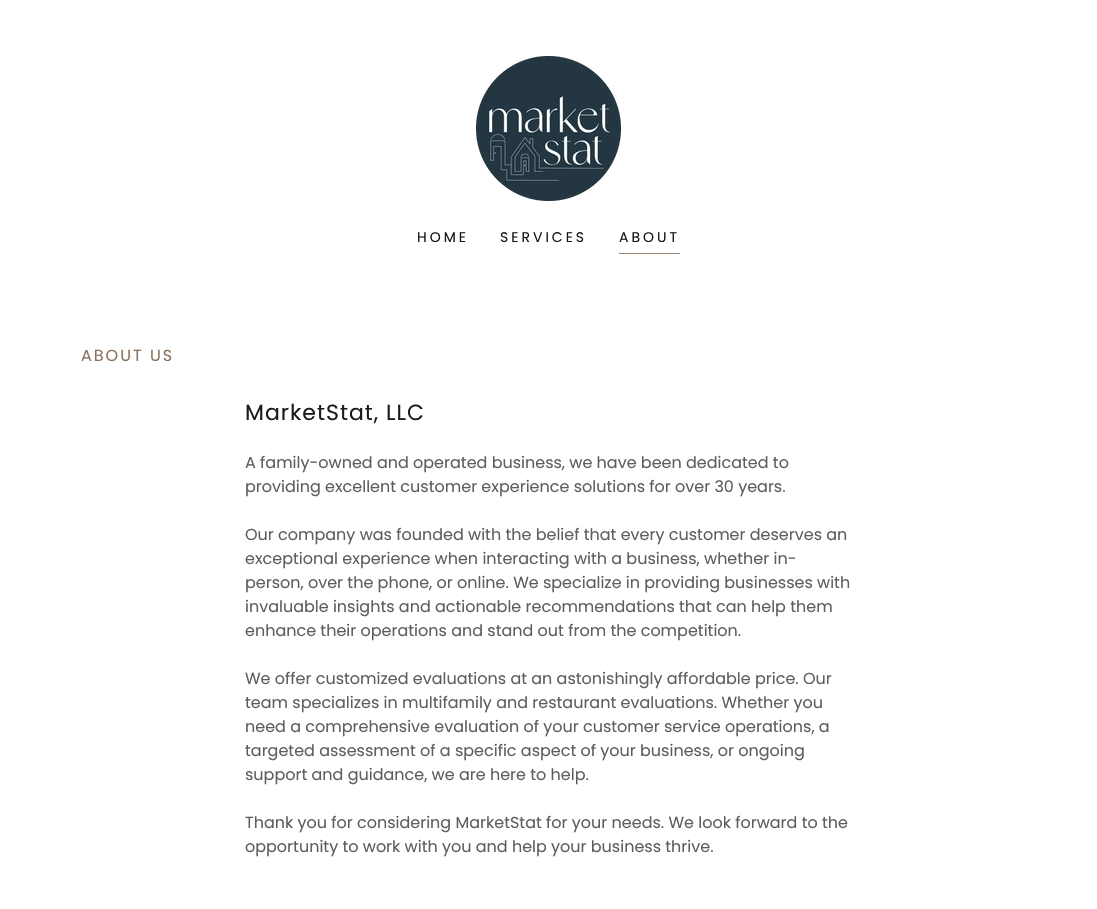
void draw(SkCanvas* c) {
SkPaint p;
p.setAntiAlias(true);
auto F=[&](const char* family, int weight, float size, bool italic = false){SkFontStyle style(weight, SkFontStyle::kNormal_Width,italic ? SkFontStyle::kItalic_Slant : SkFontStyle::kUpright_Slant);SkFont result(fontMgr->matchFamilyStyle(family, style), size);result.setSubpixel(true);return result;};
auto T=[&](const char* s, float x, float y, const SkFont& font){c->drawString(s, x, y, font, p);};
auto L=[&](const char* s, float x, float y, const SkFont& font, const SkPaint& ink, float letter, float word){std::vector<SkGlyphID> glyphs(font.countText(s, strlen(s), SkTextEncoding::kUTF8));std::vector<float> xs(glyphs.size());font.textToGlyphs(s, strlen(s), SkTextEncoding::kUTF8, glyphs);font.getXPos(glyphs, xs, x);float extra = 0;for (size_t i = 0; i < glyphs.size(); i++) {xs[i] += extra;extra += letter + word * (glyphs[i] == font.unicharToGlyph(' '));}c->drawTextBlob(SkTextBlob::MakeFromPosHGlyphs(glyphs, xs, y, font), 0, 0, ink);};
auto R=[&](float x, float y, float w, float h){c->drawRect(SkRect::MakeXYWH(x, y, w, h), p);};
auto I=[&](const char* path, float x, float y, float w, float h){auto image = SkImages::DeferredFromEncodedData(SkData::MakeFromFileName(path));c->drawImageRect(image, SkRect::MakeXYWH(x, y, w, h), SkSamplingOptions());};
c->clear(0xffffffff);
I("1.png",476,56,145,145);
auto f1 = F("Poppins",400,14);
p.setColor(0xff151515);
L("HOME",417,242,f1,p,3,0);
L("SERVICES",500,242,f1,p,3,0);
p.setColor(0xff9e846a);
R(619,253,61,1);
p.setColor(0xff151515);
L("ABOUT",619,242,f1,p,3,0);
auto f2 = F("Poppins",400,16);
p.setColor(0xff8a725a);
L("ABOUT US",81,361,f2,p,2,0);
auto f3 = F("Poppins",400,22);
p.setColor(0xff1b1b1b);
L("MarketStat, LLC",245,420,f3,p,1,0);
p.setColor(0xff5e5e5e);
T("A family-owned and operated business, we have been dedicated to",245,468,f2);
T("providing excellent customer experience solutions for over 30 years.",245,492,f2);
T("Our company was founded with the belief that every customer deserves an",245,540,f2);
T("exceptional experience when interacting with a business, whether in-",245,564,f2);
T("person, over the phone, or online. We specialize in providing businesses with",245,588,f2);
T("invaluable insights and actionable recommendations that can help them",245,612,f2);
T("enhance their operations and stand out from the competition.",245,636,f2);
T("We offer customized evaluations at an astonishingly affordable price. Our",245,684,f2);
T("team specializes in multifamily and restaurant evaluations. Whether you",245,708,f2);
T("need a comprehensive evaluation of your customer service operations, a",245,732,f2);
T("targeted assessment of a specific aspect of your business, or ongoing",245,756,f2);
T("support and guidance, we are here to help.",245,780,f2);
T("Thank you for considering MarketStat for your needs. We look forward to the",245,828,f2);
T("opportunity to work with you and help your business thrive.",245,852,f2);
}
